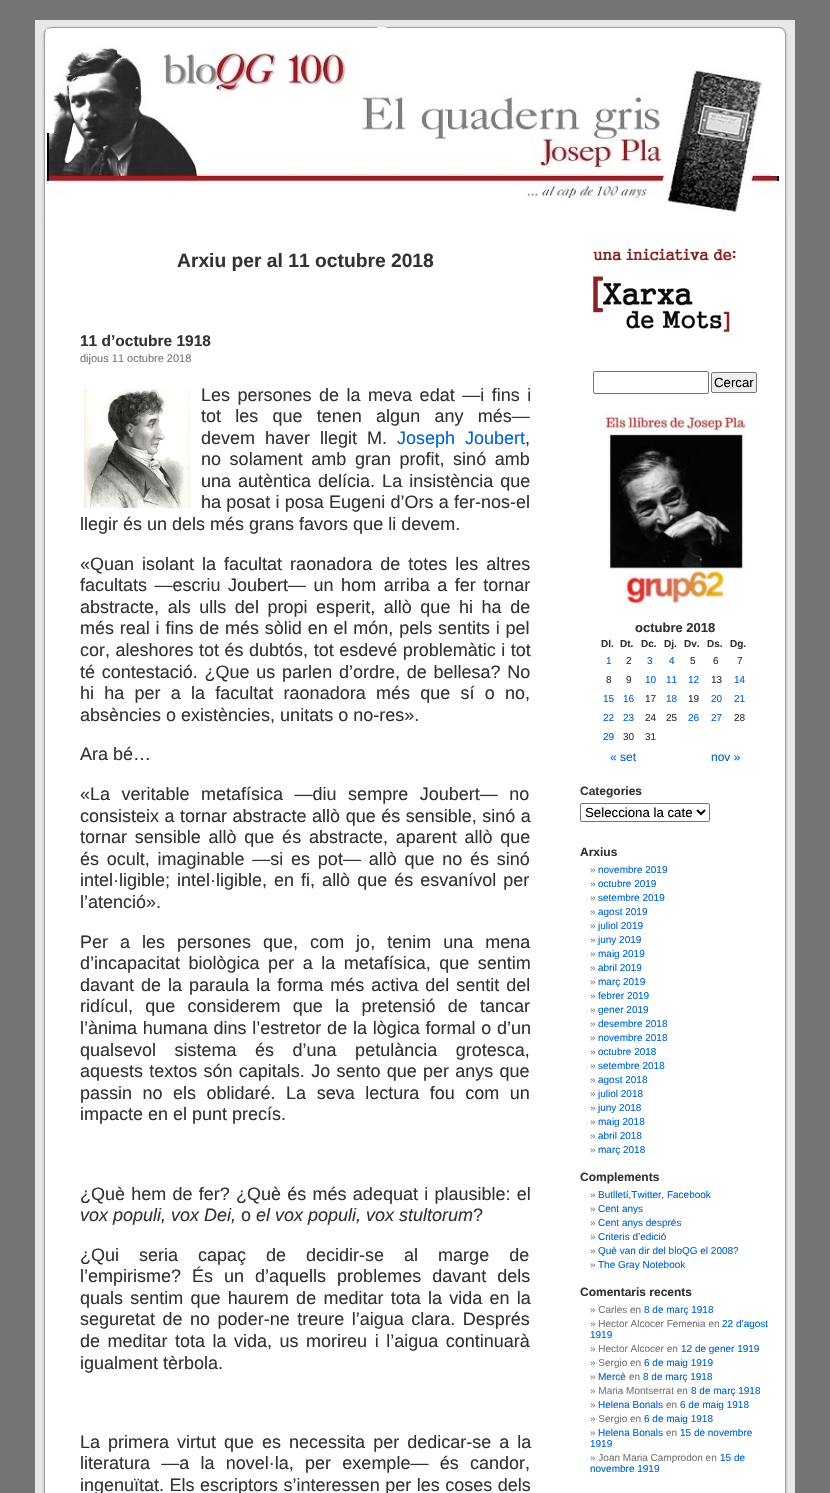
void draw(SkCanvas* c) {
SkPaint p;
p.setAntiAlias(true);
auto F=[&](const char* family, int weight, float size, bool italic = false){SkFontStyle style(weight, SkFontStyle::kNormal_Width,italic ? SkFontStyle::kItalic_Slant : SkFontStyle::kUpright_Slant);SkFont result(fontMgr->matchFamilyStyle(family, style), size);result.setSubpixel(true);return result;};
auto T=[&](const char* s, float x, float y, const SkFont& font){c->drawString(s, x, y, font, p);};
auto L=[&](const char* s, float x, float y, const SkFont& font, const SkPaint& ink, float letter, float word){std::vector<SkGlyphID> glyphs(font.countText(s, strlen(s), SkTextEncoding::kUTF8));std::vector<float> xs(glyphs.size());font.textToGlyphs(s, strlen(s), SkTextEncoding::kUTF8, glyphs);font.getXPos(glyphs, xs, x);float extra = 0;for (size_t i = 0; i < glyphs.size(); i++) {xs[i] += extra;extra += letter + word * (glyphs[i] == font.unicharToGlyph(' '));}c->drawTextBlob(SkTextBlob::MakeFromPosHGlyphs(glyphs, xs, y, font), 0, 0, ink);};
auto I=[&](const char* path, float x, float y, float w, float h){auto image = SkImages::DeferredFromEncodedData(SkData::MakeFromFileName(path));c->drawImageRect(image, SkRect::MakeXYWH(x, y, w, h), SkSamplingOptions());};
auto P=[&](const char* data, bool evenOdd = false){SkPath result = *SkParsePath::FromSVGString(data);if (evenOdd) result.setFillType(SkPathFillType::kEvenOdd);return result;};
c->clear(0xff747474);
I("1.png",35,20,760,1473);
I("2.png",36,20,758,200);
auto f1 = F("Liberation Sans",700,19.25);
p.setColor(0xff333333);
T("Arxiu per al 11 octubre 2018",177,267,f1);
auto f2 = F("Liberation Sans",700,15.5);
T("11 d’octubre 1918",80,346,f2);
auto f3 = F("Liberation Sans",400,11);
p.setColor(0xff777777);
T("dijous 11 octubre 2018",80,362,f3);
I("3.png",84,389,106,119);
auto f4 = F("Liberation Sans",400,18);
p.setColor(0xff333333);
L("Les persones de la meva edat —i fins i",201,401,f4,p,0,2.5);
L("tot les que tenen algun any més—",201,422,f4,p,0,9.25);
L("devem haver llegit M.",201,444,f4,p,0,5);
p.setColor(0xff0066cc);
L("Joseph Joubert",397,444,f4,p,0,5);
p.setColor(0xff333333);
T(",",525,444,f4);
L("no solament amb gran profit, sinó amb",201,465,f4,p,0,3.6);
L("una autèntica delícia. La insistència que",201,487,f4,p,0,2);
L("ha posat i posa Eugeni d’Ors a fer-nos-el",201,508,f4,p,0,.25);
T("llegir és un dels més grans favors que li devem.",80,530,f4);
L("«Quan isolant la facultat raonadora de totes les altres",80,570,f4,p,0,3);
L("facultats —escriu Joubert— un hom arriba a fer tornar",80,591,f4,p,0,2.5);
L("abstracte, als ulls del propi esperit, allò que hi ha de",80,613,f4,p,0,3.6);
L("més real i fins de més sòlid en el món, pels sentits i pel",80,634,f4,p,0,.8);
L("cor, aleshores tot és dubtós, tot esdevé problemàtic i tot",80,656,f4,p,0,.5);
L("té contestació. ¿Que us parlen d’ordre, de bellesa? No",80,678,f4,p,0,1.75);
L("hi ha per a la facultat raonadora més que sí o no,",80,699,f4,p,0,5.25);
T("absències o existències, unitats o no-res».",80,721,f4);
T("Ara bé…",80,760,f4);
L("«La veritable metafísica —diu sempre Joubert— no",80,800,f4,p,0,6.5);
L("consisteix a tornar abstracte allò que és sensible, sinó a",80,822,f4,p,0,.5);
L("tornar sensible allò que és abstracte, aparent allò que",80,843,f4,p,0,2.75);
L("és ocult, imaginable —si es pot— allò que no és sinó",80,865,f4,p,0,2.75);
L("intel·ligible; intel·ligible, en fi, allò que és esvanívol per",80,886,f4,p,0,2);
T("l’atenció».",80,908,f4);
L("Per a les persones que, com jo, tenim una mena",80,948,f4,p,0,7);
L("d’incapacitat biològica per a la metafísica, que sentim",80,969,f4,p,0,3.5);
L("davant de la paraula la forma més activa del sentit del",80,991,f4,p,0,2);
L("ridícul, que considerem que la pretensió de tancar",80,1012,f4,p,0,7.25);
L("l’ànima humana dins l’estretor de la lògica formal o d’un",80,1034,f4,p,0,.75);
L("qualsevol sistema és d’una petulància grotesca,",80,1056,f4,p,0,13.5);
L("aquests textos són capitals. Jo sento que per anys que",80,1077,f4,p,0,1.25);
L("passin no els oblidaré. La seva lectura fou com un",80,1099,f4,p,0,5.5);
T("impacte en el punt precís.",80,1120,f4);
L("¿Què hem de fer? ¿Què és més adequat i plausible: el",80,1200,f4,p,0,1.25);
auto f5 = F("Liberation Sans",400,18,true);
T("vox populi, vox Dei,",80,1221,f5);
T("o",241,1221,f4);
T("el vox populi, vox stultorum",256,1221,f5);
T("?",473,1221,f4);
L("¿Qui seria capaç de decidir-se al marge de",80,1261,f4,p,0,15);
L("l’empirisme? És un d’aquells problemes davant dels",80,1282,f4,p,0,6);
L("quals sentim que haurem de meditar tota la vida en la",80,1304,f4,p,0,2.25);
L("seguretat de no poder-ne treure l’aigua clara. Després",80,1325,f4,p,0,2.5);
L("de meditar tota la vida, us morireu i l’aigua continuarà",80,1347,f4,p,0,2.5);
T("igualment tèrbola.",80,1369,f4);
L("La primera virtut que es necessita per dedicar-se a la",80,1448,f4,p,0,3);
L("literatura —a la novel·la, per exemple— és candor,",80,1469,f4,p,0,6.25);
L("ingenuïtat. Els escriptors s’interessen per les coses dels",80,1491,f4,p,0,.5);
I("4.png",592,248,144,84);
p.setStroke(true);
p.setStrokeWidth(1);
p.setColor(0xff767676);
c->drawRoundRect(SkRect::MakeXYWH(593.5,371.5,115,22),1.5,1.5,p);
p.setStroke(false);
p.setColor(0xffefefef);
c->drawRoundRect(SkRect::MakeXYWH(711.5,372.5,45,20),1.5,1.5,p);
p.setStroke(true);
p.setColor(0xff767676);
c->drawRoundRect(SkRect::MakeXYWH(711.5,372.5,45,20),1.5,1.5,p);
auto f6 = F("Liberation Sans",400,13.25);
p.setStroke(false);
p.setColor(0xff000000);
T("Cercar",714,387,f6);
I("5.png",604,414,142,191);
auto f7 = F("Liberation Sans",700,13);
p.setColor(0xff333333);
T("octubre 2018",635,632,f7);
auto f8 = F("Liberation Sans",700,10);
T("Dl.",601,647,f8);
T("Dt.",620,647,f8);
T("Dc.",641,647,f8);
T("Dj.",664,647,f8);
T("Dv.",684,647,f8);
T("Ds.",707,647,f8);
T("Dg.",730,647,f8);
auto f9 = F("Liberation Sans",400,10);
p.setColor(0xff0066cc);
T("1",606,664,f9);
p.setColor(0xff333333);
T("2",626,664,f9);
p.setColor(0xff0066cc);
T("3",647,664,f9);
T("4",669,664,f9);
p.setColor(0xff333333);
T("5",690,664,f9);
T("6",713,664,f9);
T("7",737,664,f9);
T("8",606,683,f9);
T("9",626,683,f9);
p.setColor(0xff0066cc);
T("10",645,683,f9);
T("11",666,683,f9);
T("12",688,683,f9);
p.setColor(0xff333333);
T("13",711,683,f9);
p.setColor(0xff0066cc);
T("14",734,683,f9);
T("15",603,702,f9);
T("16",623,702,f9);
p.setColor(0xff333333);
T("17",645,702,f9);
p.setColor(0xff0066cc);
T("18",666,702,f9);
p.setColor(0xff333333);
T("19",688,702,f9);
p.setColor(0xff0066cc);
T("20",711,702,f9);
T("21",734,702,f9);
T("22",603,721,f9);
T("23",623,721,f9);
p.setColor(0xff333333);
T("24",645,721,f9);
T("25",666,721,f9);
p.setColor(0xff0066cc);
T("26",688,721,f9);
T("27",711,721,f9);
p.setColor(0xff333333);
T("28",734,721,f9);
p.setColor(0xff0066cc);
T("29",603,740,f9);
p.setColor(0xff333333);
T("30",623,740,f9);
T("31",645,740,f9);
auto f10 = F("Liberation Sans",400,12);
p.setColor(0xff0066cc);
T("« set",610,761,f10);
T("nov »",711,761,f10);
auto f11 = F("Liberation Sans",700,12);
p.setColor(0xff333333);
T("Categories",580,795,f11);
p.setStroke(true);
p.setColor(0xff767676);
c->drawRoundRect(SkRect::MakeXYWH(580.5,803.5,129,18),1.5,1.5,p);
p.setStrokeWidth(2);
p.setColor(0xff000000);
c->drawPath(P("M697 810l4 4l4-4"),p);
p.setStroke(false);
T("Selecciona la cate",585,817,f6);
p.setColor(0xff333333);
T("Arxius",580,856,f11);
p.setColor(0xff777777);
T("»",590,873,f9);
p.setColor(0xff0066cc);
T("novembre 2019",598,873,f9);
p.setColor(0xff777777);
T("»",590,887,f9);
p.setColor(0xff0066cc);
T("octubre 2019",598,887,f9);
p.setColor(0xff777777);
T("»",590,901,f9);
p.setColor(0xff0066cc);
T("setembre 2019",598,901,f9);
p.setColor(0xff777777);
T("»",590,915,f9);
p.setColor(0xff0066cc);
T("agost 2019",598,915,f9);
p.setColor(0xff777777);
T("»",590,929,f9);
p.setColor(0xff0066cc);
T("juliol 2019",598,929,f9);
p.setColor(0xff777777);
T("»",590,943,f9);
p.setColor(0xff0066cc);
T("juny 2019",598,943,f9);
p.setColor(0xff777777);
T("»",590,957,f9);
p.setColor(0xff0066cc);
T("maig 2019",598,957,f9);
p.setColor(0xff777777);
T("»",590,971,f9);
p.setColor(0xff0066cc);
T("abril 2019",598,971,f9);
p.setColor(0xff777777);
T("»",590,985,f9);
p.setColor(0xff0066cc);
T("març 2019",598,985,f9);
p.setColor(0xff777777);
T("»",590,999,f9);
p.setColor(0xff0066cc);
T("febrer 2019",598,999,f9);
p.setColor(0xff777777);
T("»",590,1013,f9);
p.setColor(0xff0066cc);
T("gener 2019",598,1013,f9);
p.setColor(0xff777777);
T("»",590,1027,f9);
p.setColor(0xff0066cc);
T("desembre 2018",598,1027,f9);
p.setColor(0xff777777);
T("»",590,1041,f9);
p.setColor(0xff0066cc);
T("novembre 2018",598,1041,f9);
p.setColor(0xff777777);
T("»",590,1055,f9);
p.setColor(0xff0066cc);
T("octubre 2018",598,1055,f9);
p.setColor(0xff777777);
T("»",590,1069,f9);
p.setColor(0xff0066cc);
T("setembre 2018",598,1069,f9);
p.setColor(0xff777777);
T("»",590,1083,f9);
p.setColor(0xff0066cc);
T("agost 2018",598,1083,f9);
p.setColor(0xff777777);
T("»",590,1097,f9);
p.setColor(0xff0066cc);
T("juliol 2018",598,1097,f9);
p.setColor(0xff777777);
T("»",590,1111,f9);
p.setColor(0xff0066cc);
T("juny 2018",598,1111,f9);
p.setColor(0xff777777);
T("»",590,1125,f9);
p.setColor(0xff0066cc);
T("maig 2018",598,1125,f9);
p.setColor(0xff777777);
T("»",590,1139,f9);
p.setColor(0xff0066cc);
T("abril 2018",598,1139,f9);
p.setColor(0xff777777);
T("»",590,1153,f9);
p.setColor(0xff0066cc);
T("març 2018",598,1153,f9);
p.setColor(0xff333333);
T("Complements",580,1181,f11);
p.setColor(0xff777777);
T("»",590,1198,f9);
p.setColor(0xff0066cc);
T("Butlletí,Twitter, Facebook",598,1198,f9);
p.setColor(0xff777777);
T("»",590,1212,f9);
p.setColor(0xff0066cc);
T("Cent anys",598,1212,f9);
p.setColor(0xff777777);
T("»",590,1226,f9);
p.setColor(0xff0066cc);
T("Cent anys després",598,1226,f9);
p.setColor(0xff777777);
T("»",590,1240,f9);
p.setColor(0xff0066cc);
T("Criteris d’edició",598,1240,f9);
p.setColor(0xff777777);
T("»",590,1254,f9);
p.setColor(0xff0066cc);
T("Què van dir del bloQG el 2008?",598,1254,f9);
p.setColor(0xff777777);
T("»",590,1268,f9);
p.setColor(0xff0066cc);
T("The Gray Notebook",598,1268,f9);
p.setColor(0xff333333);
T("Comentaris recents",580,1296,f11);
p.setColor(0xff777777);
T("» Carles en",590,1313,f9);
p.setColor(0xff0066cc);
T("8 de març 1918",644,1313,f9);
p.setColor(0xff777777);
T("» Hector Alcocer Femenia en",590,1327,f9);
p.setColor(0xff0066cc);
T("22 d’agost",722,1327,f9);
T("1919",590,1338,f9);
p.setColor(0xff777777);
T("» Hector Alcocer en",590,1352,f9);
p.setColor(0xff0066cc);
T("12 de gener 1919",681,1352,f9);
p.setColor(0xff777777);
T("» Sergio en",590,1366,f9);
p.setColor(0xff0066cc);
T("6 de maig 1919",644,1366,f9);
p.setColor(0xff777777);
T("»",590,1380,f9);
p.setColor(0xff0066cc);
T("Mercè",598,1380,f9);
p.setColor(0xff777777);
T("en",629,1380,f9);
p.setColor(0xff0066cc);
T("8 de març 1918",643,1380,f9);
p.setColor(0xff777777);
T("» Maria Montserrat en",590,1394,f9);
p.setColor(0xff0066cc);
T("8 de març 1918",691,1394,f9);
p.setColor(0xff777777);
T("»",590,1408,f9);
p.setColor(0xff0066cc);
T("Helena Bonals",598,1408,f9);
p.setColor(0xff777777);
T("en",666,1408,f9);
p.setColor(0xff0066cc);
T("6 de maig 1918",680,1408,f9);
p.setColor(0xff777777);
T("» Sergio en",590,1422,f9);
p.setColor(0xff0066cc);
T("6 de maig 1918",644,1422,f9);
p.setColor(0xff777777);
T("»",590,1436,f9);
p.setColor(0xff0066cc);
T("Helena Bonals",598,1436,f9);
p.setColor(0xff777777);
T("en",666,1436,f9);
p.setColor(0xff0066cc);
T("15 de novembre",680,1436,f9);
T("1919",590,1447,f9);
p.setColor(0xff777777);
T("» Joan Maria Camprodon en",590,1461,f9);
p.setColor(0xff0066cc);
T("15 de",720,1461,f9);
T("novembre 1919",590,1472,f9);
}
